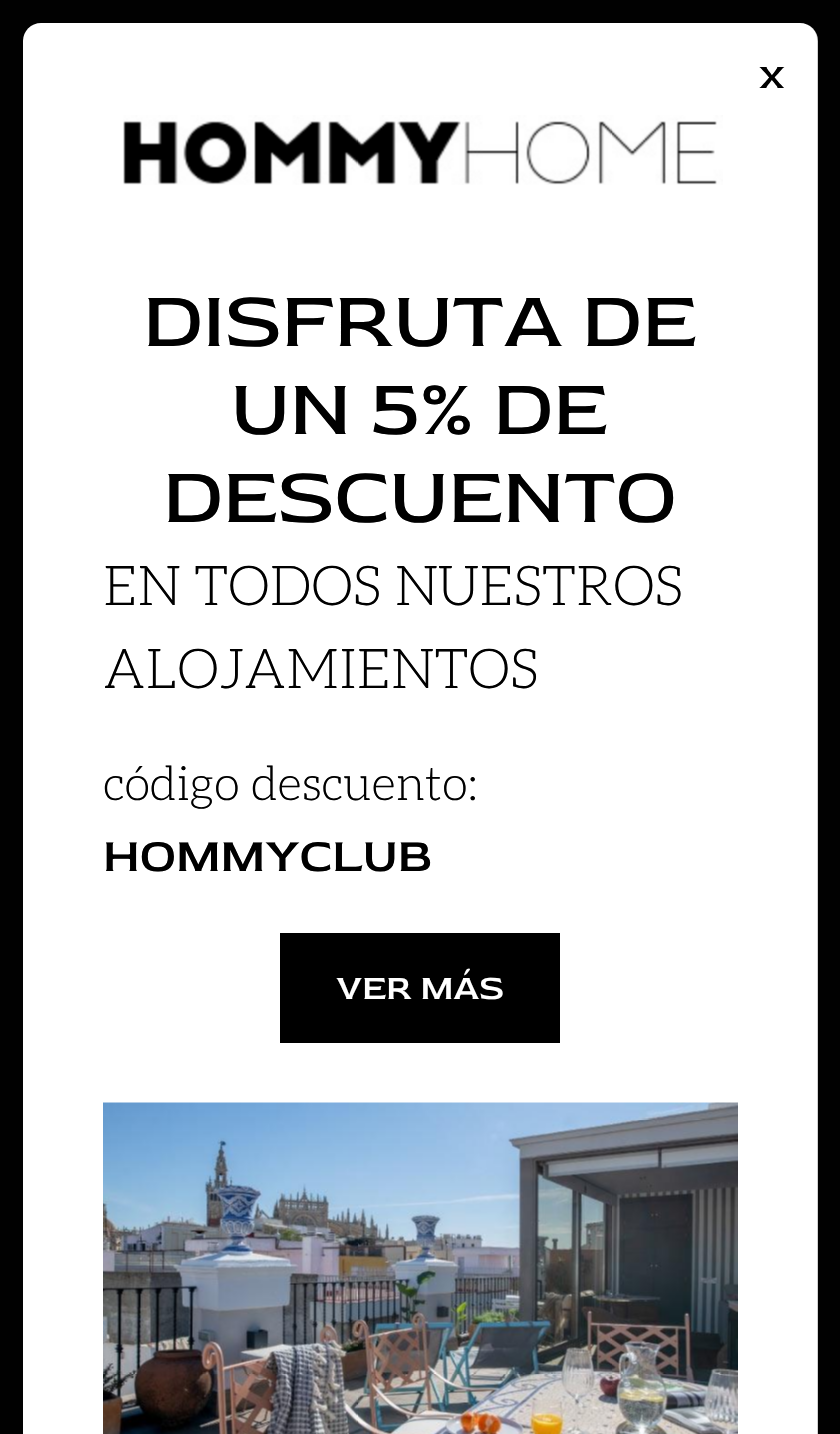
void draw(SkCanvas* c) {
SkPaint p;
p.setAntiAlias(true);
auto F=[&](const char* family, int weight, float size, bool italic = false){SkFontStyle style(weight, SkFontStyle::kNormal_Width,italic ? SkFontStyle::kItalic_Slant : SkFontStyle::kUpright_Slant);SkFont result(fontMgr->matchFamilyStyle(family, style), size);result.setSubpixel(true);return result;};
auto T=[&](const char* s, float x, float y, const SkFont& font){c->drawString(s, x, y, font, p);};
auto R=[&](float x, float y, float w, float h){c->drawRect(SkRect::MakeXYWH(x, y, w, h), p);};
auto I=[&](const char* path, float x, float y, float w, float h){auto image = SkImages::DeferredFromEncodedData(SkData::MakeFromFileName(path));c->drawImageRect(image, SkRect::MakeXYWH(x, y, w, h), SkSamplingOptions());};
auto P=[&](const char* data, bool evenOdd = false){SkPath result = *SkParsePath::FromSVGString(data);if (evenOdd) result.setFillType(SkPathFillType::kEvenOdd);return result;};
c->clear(0xff010101);
p.setColor(0xffffffff);
c->drawPath(P("M41 23h759c10 0 18 8 18 18v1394h-795v-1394c0-10 8-18 18-18z"),p);
p.setStroke(true);
p.setStrokeWidth(3);
p.setColor(0x2e000000);
c->drawRoundRect(SkRect::MakeXYWH(21.5,21.5,797,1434),18.5,18.5,p);
auto f1 = F("Red Rose",500,35);
p.setStroke(false);
p.setColor(0xff000000);
T("X",759,88,f1);
I("1.png",123,115,600,70);
auto f2 = F("Red Rose",400,80);
T("DISFRUTA DE",143,346,f2);
T("UN 5% DE",231,434,f2);
T("DESCUENTO",163,522,f2);
auto f3 = F("Aleo",300,55);
T("EN TODOS NUESTROS",103,605,f3);
T("ALOJAMIENTOS",103,688,f3);
auto f4 = F("Aleo",300,47.5);
T("código descuento:",103,800,f4);
auto f5 = F("Red Rose",500,47.5);
T("HOMMYCLUB",103,871,f5);
R(280,933,280,110);
p.setColor(0xffffffff);
T("VER MÁS",336,999,f1);
I("2.png",103,1102,635,332);
}
